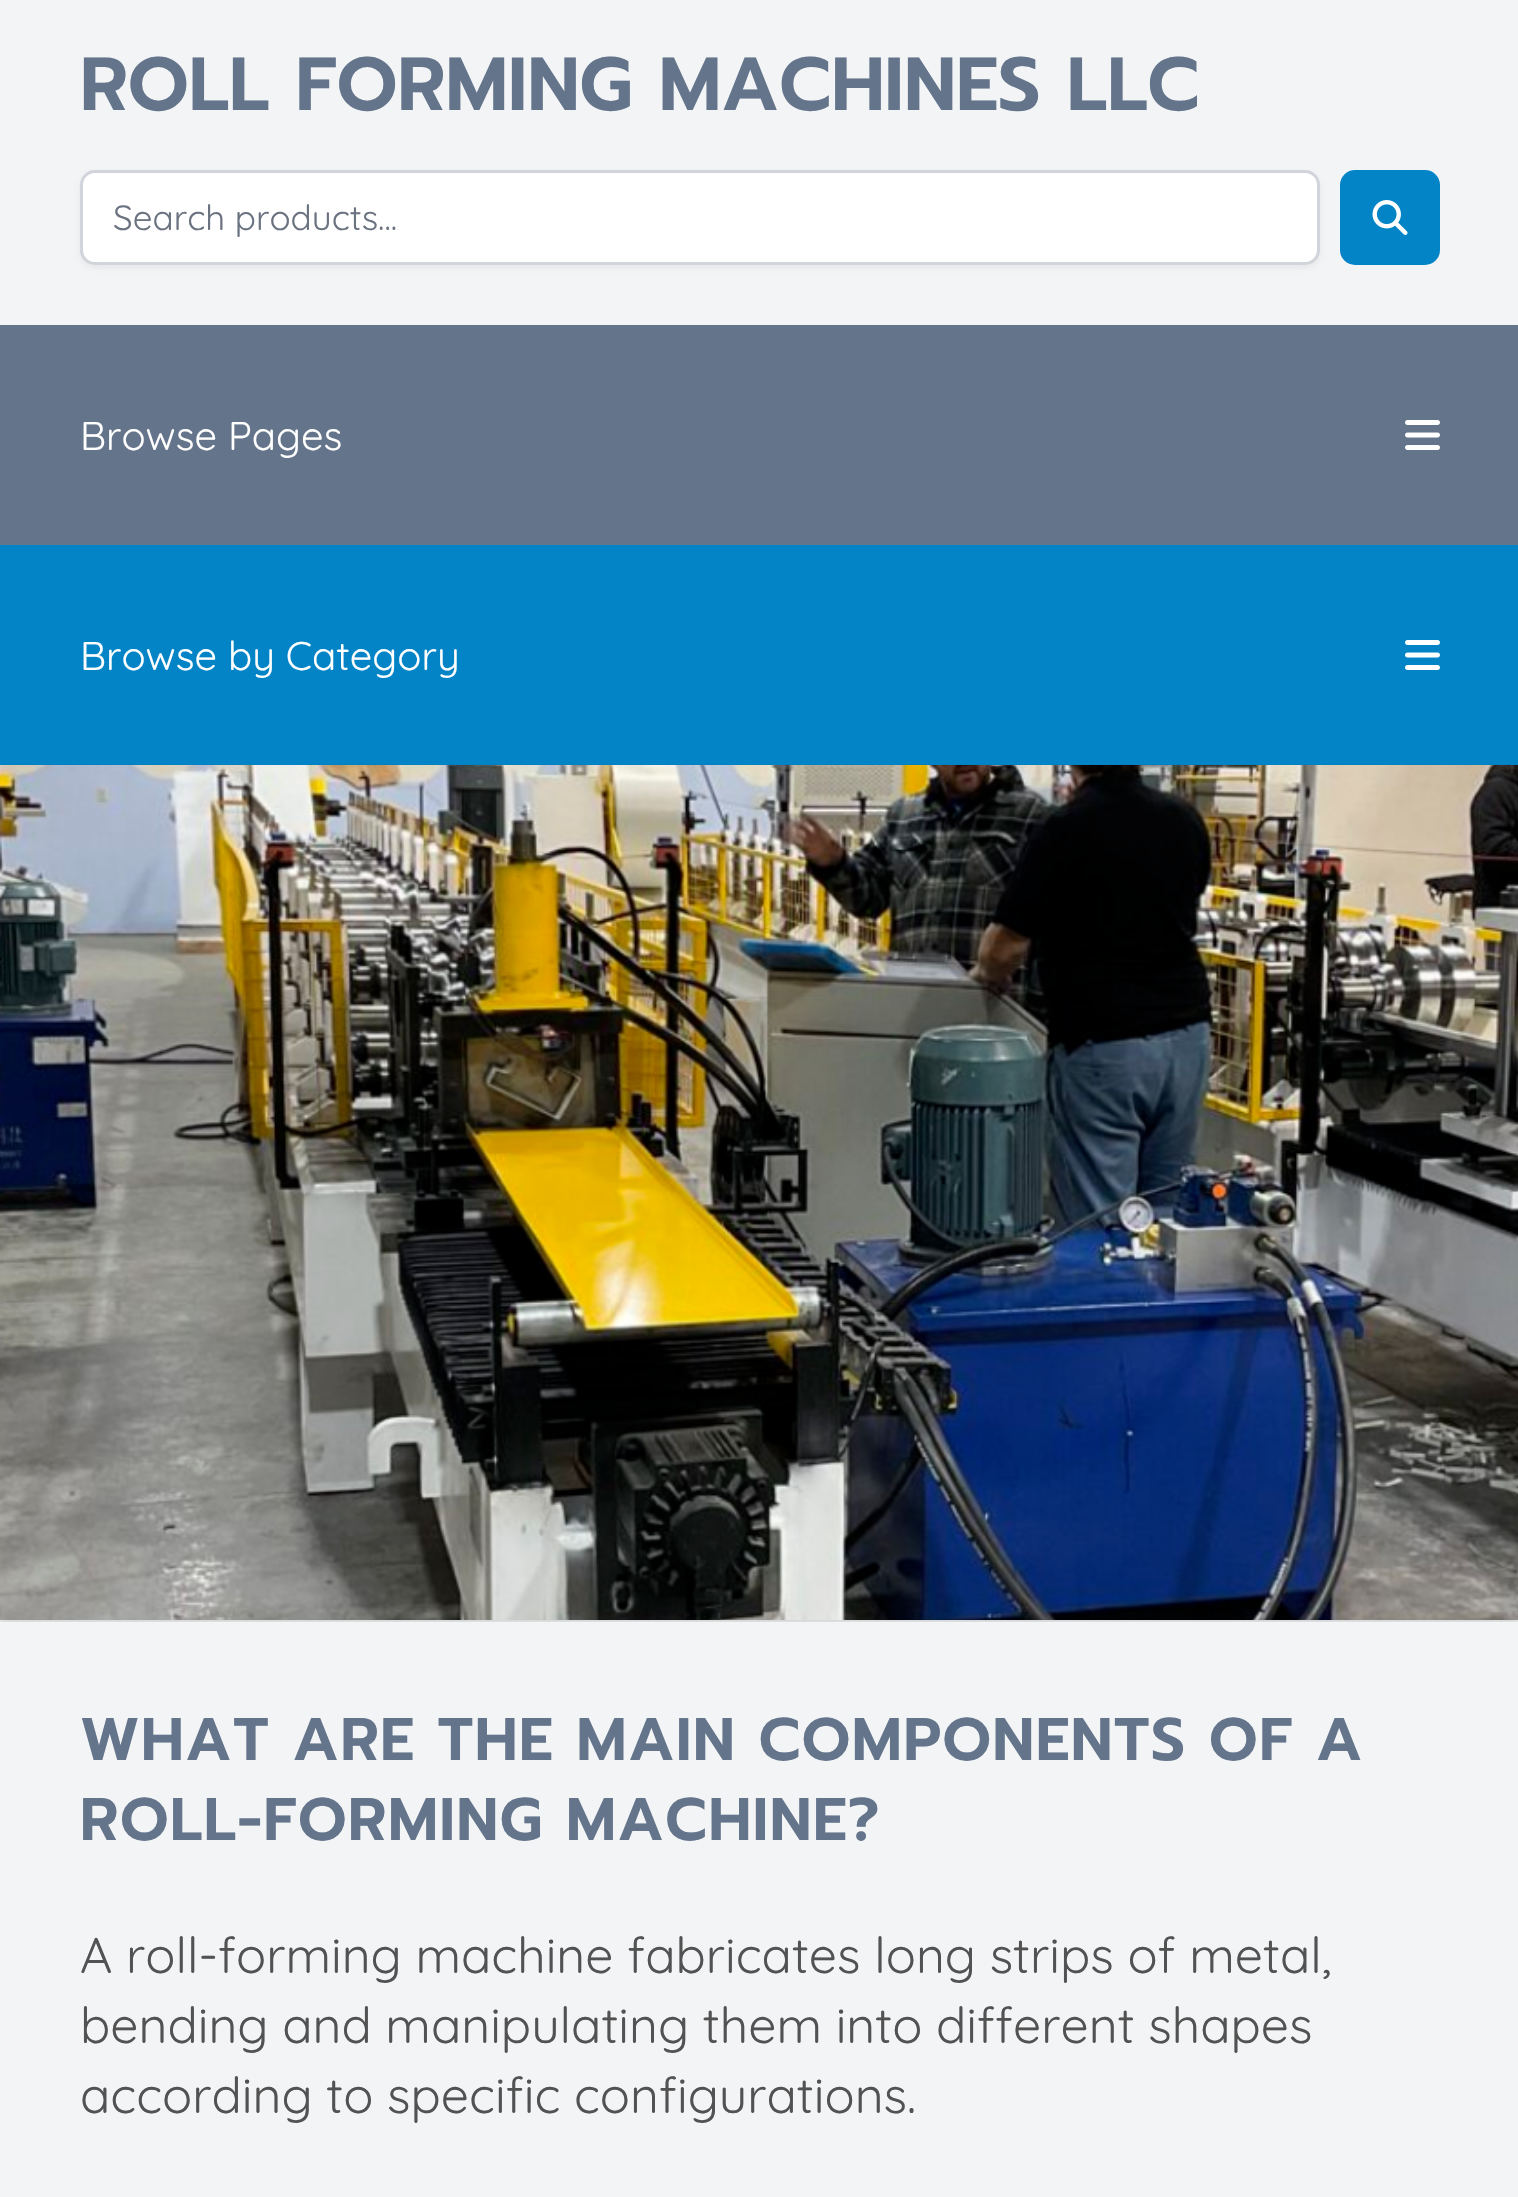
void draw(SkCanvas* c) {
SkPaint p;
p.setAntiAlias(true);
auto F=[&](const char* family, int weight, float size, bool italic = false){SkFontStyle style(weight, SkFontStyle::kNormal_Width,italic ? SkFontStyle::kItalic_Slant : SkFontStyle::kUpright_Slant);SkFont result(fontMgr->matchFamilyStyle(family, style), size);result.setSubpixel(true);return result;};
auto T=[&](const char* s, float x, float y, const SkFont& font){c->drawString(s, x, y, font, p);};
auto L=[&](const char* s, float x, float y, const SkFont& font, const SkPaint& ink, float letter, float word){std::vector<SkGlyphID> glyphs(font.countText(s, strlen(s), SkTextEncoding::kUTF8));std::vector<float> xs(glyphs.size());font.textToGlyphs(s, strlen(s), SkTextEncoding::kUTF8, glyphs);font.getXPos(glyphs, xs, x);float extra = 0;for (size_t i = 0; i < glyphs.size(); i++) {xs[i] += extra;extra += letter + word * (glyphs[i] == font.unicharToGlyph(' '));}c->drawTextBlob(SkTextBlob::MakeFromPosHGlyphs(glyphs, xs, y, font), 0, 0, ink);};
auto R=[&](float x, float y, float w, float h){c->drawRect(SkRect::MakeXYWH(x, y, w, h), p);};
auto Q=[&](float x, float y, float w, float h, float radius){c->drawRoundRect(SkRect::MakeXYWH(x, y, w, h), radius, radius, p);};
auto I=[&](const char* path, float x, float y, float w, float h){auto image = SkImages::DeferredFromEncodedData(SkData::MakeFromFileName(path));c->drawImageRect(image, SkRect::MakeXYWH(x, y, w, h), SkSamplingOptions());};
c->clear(0xfff3f4f6);
auto f1 = F("Prompt",600,75);
p.setColor(0xff64748b);
T("ROLL FORMING MACHINES LLC",80,110,f1);
p.setColor(0x0d000000);
p.setMaskFilter(SkMaskFilter::MakeBlur(kNormal_SkBlurStyle, 2.5));
c->drawRoundRect(SkRect::MakeXYWH(80,173,1240,95),15,15,p);
p.setMaskFilter(nullptr);
p.setColor(0xffffffff);
c->drawRoundRect(SkRect::MakeXYWH(81.5,171.5,1237,92),13.5,13.5,p);
p.setStroke(true);
p.setStrokeWidth(3);
p.setColor(0xffd1d5db);
c->drawRoundRect(SkRect::MakeXYWH(81.5,171.5,1237,92),13.5,13.5,p);
auto f2 = F("Quicksand",400,35);
p.setStroke(false);
p.setColor(0xff6b7280);
T("Search products...",113,230,f2);
p.setColor(0xff0284c7);
Q(1340,170,100,95,15);
I("1.png",1372,200,36,35);
p.setColor(0xff64748b);
R(0,325,1518,220);
auto f3 = F("Quicksand",400,40);
p.setColor(0xffffffff);
T("Browse Pages",80,450,f3);
I("2.png",1405,420,35,30);
p.setColor(0xff0284c7);
R(0,545,1518,220);
p.setColor(0xffffffff);
T("Browse by Category",80,670,f3);
I("3.png",1405,640,35,30);
I("4.png",0,764,1518,858);
auto f4 = F("Prompt",600,60);
p.setColor(0xff64748b);
L("WHAT ARE THE MAIN COMPONENTS OF A",80,1760,f4,p,1.5,0);
L("ROLL-FORMING MACHINE?",80,1840,f4,p,1.5,0);
auto f5 = F("Quicksand",400,50);
p.setColor(0xff525252);
T("A roll-forming machine fabricates long strips of metal,",80,1973,f5);
T("bending and manipulating them into different shapes",80,2043,f5);
T("according to specific configurations.",80,2113,f5);
}
